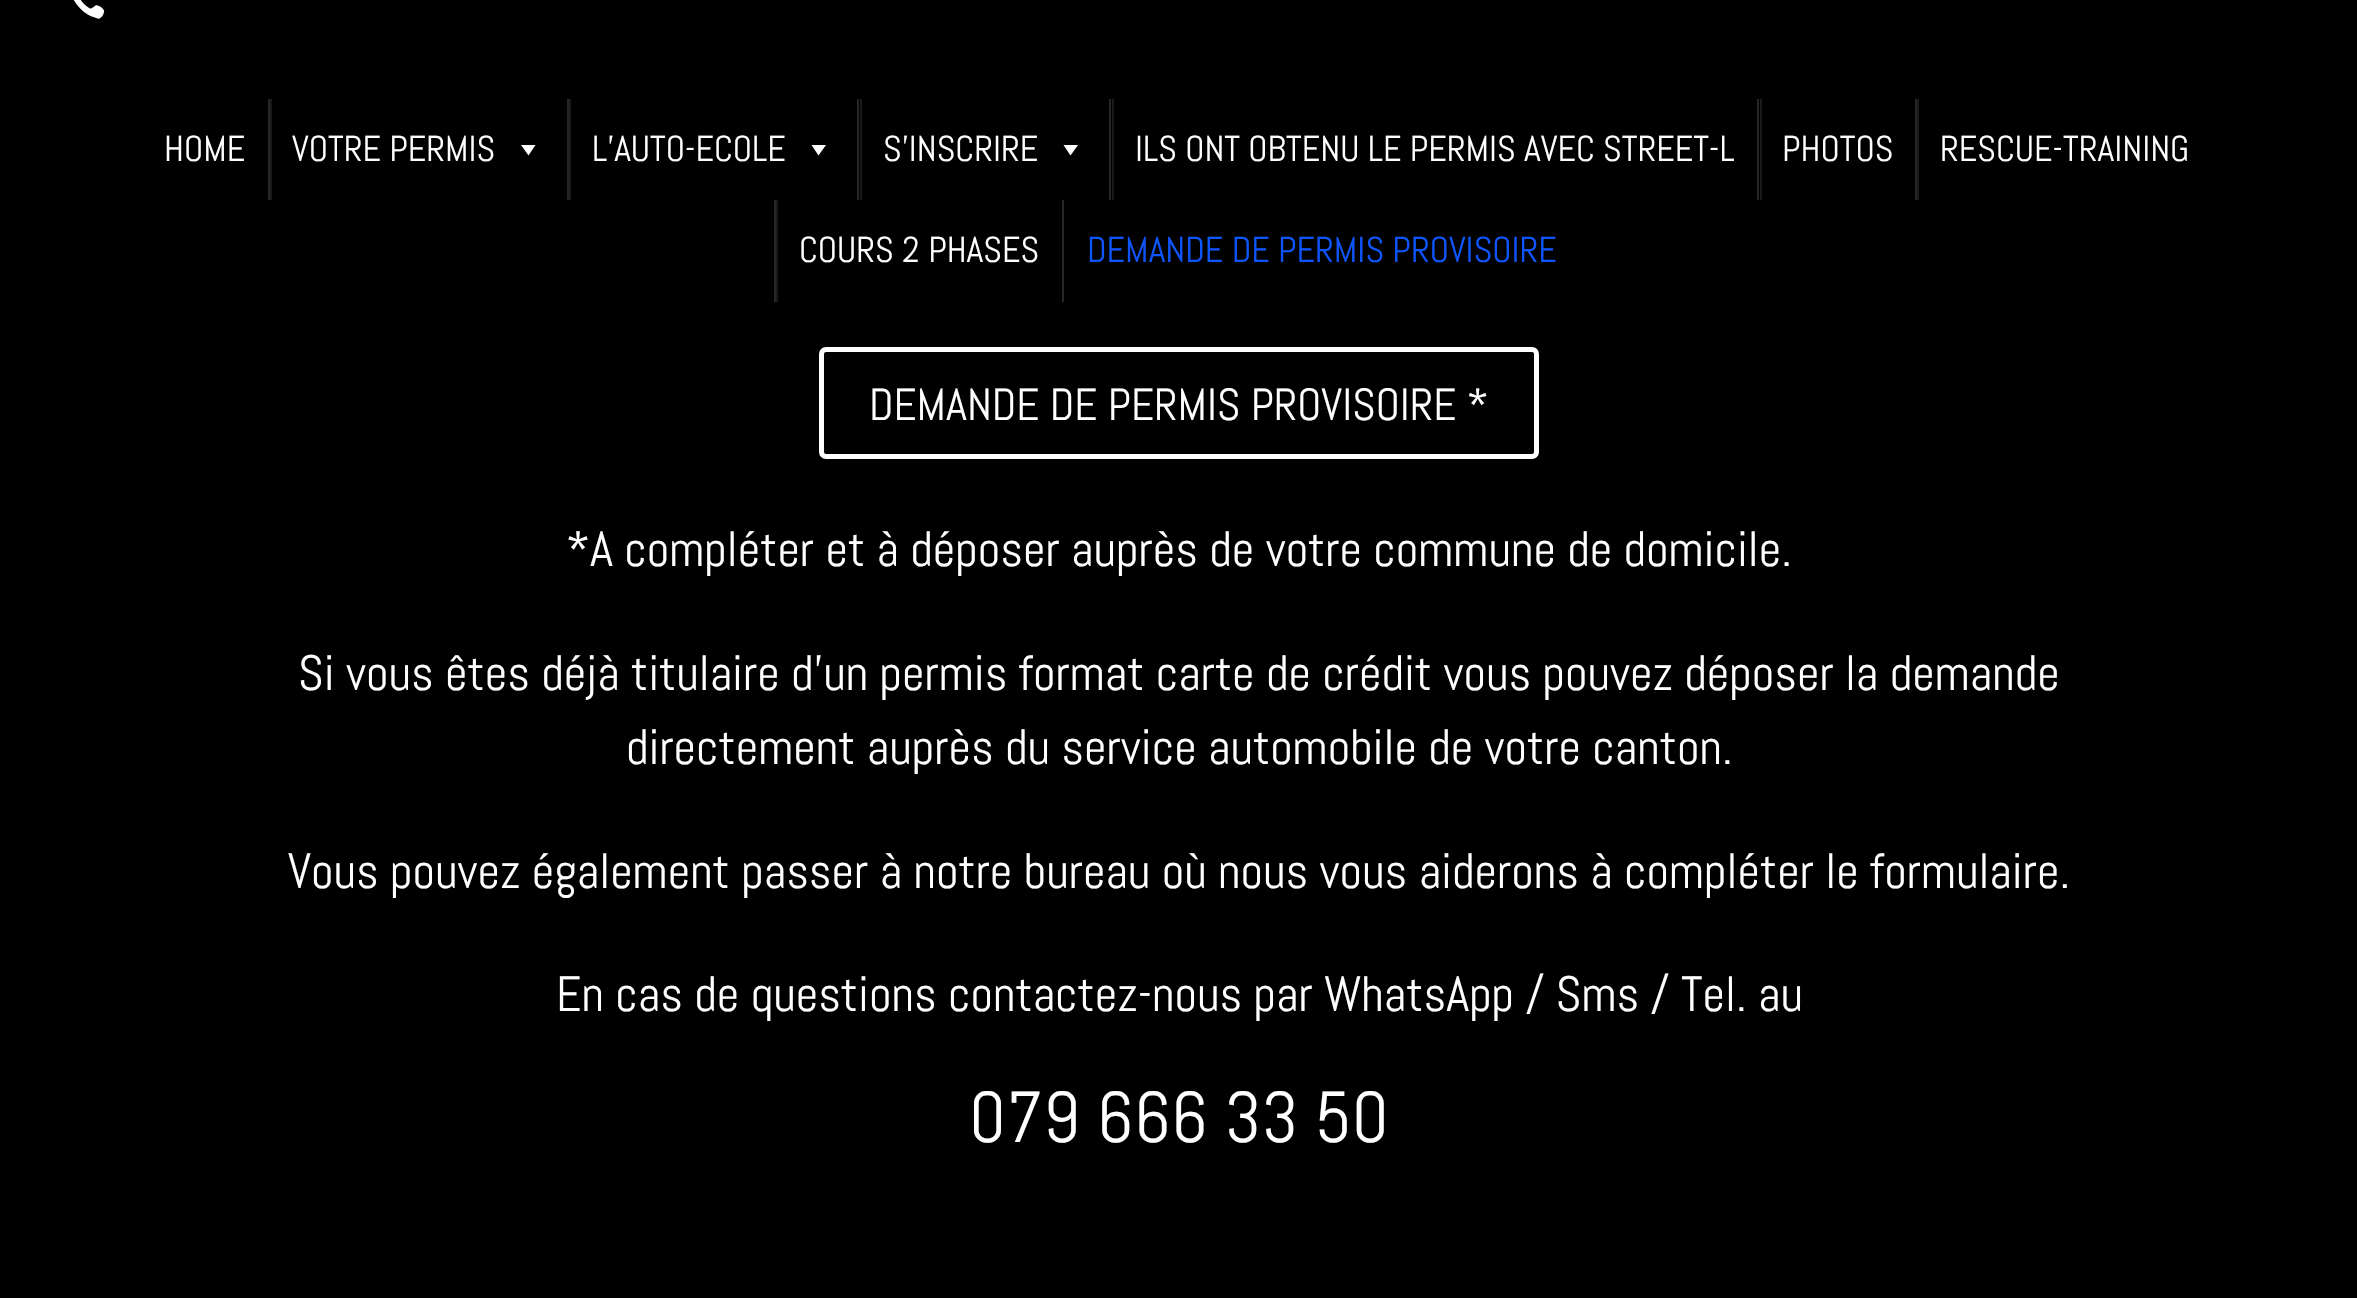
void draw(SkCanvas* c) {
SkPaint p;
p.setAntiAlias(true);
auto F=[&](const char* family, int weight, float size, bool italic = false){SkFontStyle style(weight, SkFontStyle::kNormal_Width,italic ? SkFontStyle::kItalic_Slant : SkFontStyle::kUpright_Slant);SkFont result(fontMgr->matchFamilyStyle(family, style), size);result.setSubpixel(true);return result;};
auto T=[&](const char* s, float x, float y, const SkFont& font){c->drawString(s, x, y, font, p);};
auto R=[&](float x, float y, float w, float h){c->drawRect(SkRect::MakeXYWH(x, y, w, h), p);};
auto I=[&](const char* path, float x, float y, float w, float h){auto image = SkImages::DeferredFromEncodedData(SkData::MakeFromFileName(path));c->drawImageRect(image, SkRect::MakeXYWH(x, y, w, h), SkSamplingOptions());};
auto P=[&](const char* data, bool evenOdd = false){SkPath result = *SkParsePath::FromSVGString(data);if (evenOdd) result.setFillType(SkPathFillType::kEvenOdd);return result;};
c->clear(0xff000000);
I("1.png",73,0,32,19);
auto f1 = F("Abel",400,36);
p.setColor(0xffffffff);
T("HOME",164,161,f1);
p.setColor(0xff1a1a1a);
R(270,99,2,101);
p.setColor(0xff262626);
R(268,99,2,101);
p.setColor(0xffffffff);
T("VOTRE PERMIS",292,161,f1);
c->drawPath(P("M535.5 145l-7 10.5l-7.5-10.5z"),p);
p.setColor(0xff1a1a1a);
R(569,99,2,101);
p.setColor(0xff262626);
R(567,99,2,101);
p.setColor(0xffffffff);
T("L’AUTO-ECOLE",592,161,f1);
c->drawPath(P("M826 145l-7.5 10.5l-7-10.5z"),p);
p.setColor(0xff1a1a1a);
R(860,99,2,101);
p.setColor(0xff262626);
R(857,99,2,101);
p.setColor(0xffffffff);
T("S’INSCRIRE",883,161,f1);
c->drawPath(P("M1078 145l-7.5 10.5l-7-10.5z"),p);
p.setColor(0xff1a1a1a);
R(1112,99,2,101);
p.setColor(0xff262626);
R(1109,99,2,101);
p.setColor(0xffffffff);
T("ILS ONT OBTENU LE PERMIS AVEC STREET-L",1135,161,f1);
p.setColor(0xff1a1a1a);
R(1760,99,2,101);
p.setColor(0xff262626);
R(1757,99,2,101);
p.setColor(0xffffffff);
T("PHOTOS",1782,161,f1);
p.setColor(0xff1a1a1a);
R(1917,99,2,101);
p.setColor(0xff262626);
R(1915,99,2,101);
p.setColor(0xffffffff);
T("RESCUE-TRAINING",1940,161,f1);
p.setColor(0xff1a1a1a);
R(776,200,2,102);
p.setColor(0xff262626);
R(774,200,2,102);
p.setColor(0xffffffff);
T("COURS 2 PHASES",799,262,f1);
p.setColor(0xff262626);
R(1062,200,2,102);
p.setColor(0xff0e55fc);
T("DEMANDE DE PERMIS PROVISOIRE",1087,262,f1);
p.setStroke(true);
p.setStrokeWidth(5);
p.setColor(0xffffffff);
c->drawRoundRect(SkRect::MakeXYWH(821.5,349.5,715,107),4.5,4.5,p);
auto f2 = F("Abel",400,45);
p.setStroke(false);
T("DEMANDE DE PERMIS PROVISOIRE *",869,420,f2);
auto f3 = F("Abel",400,49.5);
T("*A compléter et à déposer auprès de votre commune de domicile.",566,566,f3);
T("Si vous êtes déjà titulaire d’un permis format carte de crédit vous pouvez déposer la demande",298,690,f3);
T("directement auprès du service automobile de votre canton.",626,764,f3);
T("Vous pouvez également passer à notre bureau où nous vous aiderons à compléter le formulaire.",288,888,f3);
T("En cas de questions contactez-nous par WhatsApp / Sms / Tel. au",556,1011,f3);
auto f4 = F("Abel",400,72);
T("079 666 33 50",969,1142,f4);
}
